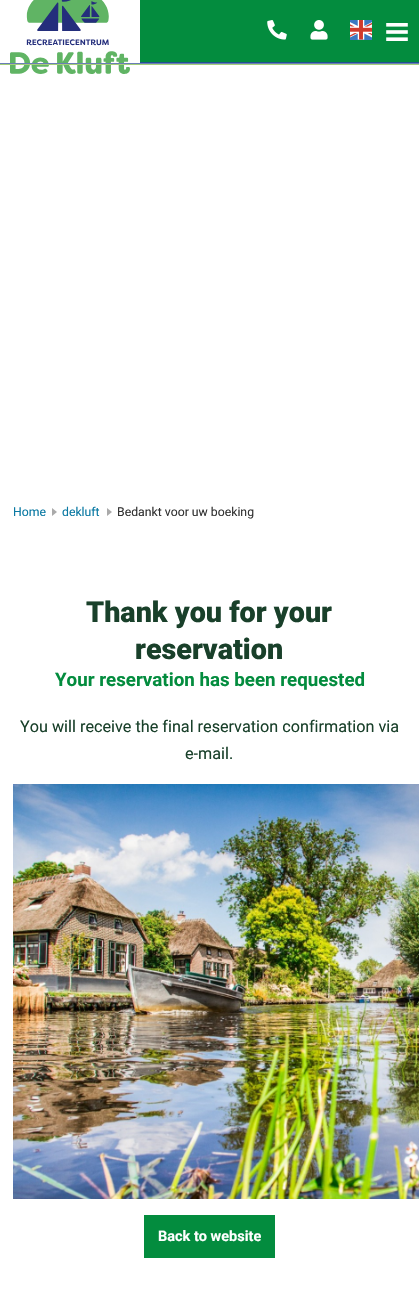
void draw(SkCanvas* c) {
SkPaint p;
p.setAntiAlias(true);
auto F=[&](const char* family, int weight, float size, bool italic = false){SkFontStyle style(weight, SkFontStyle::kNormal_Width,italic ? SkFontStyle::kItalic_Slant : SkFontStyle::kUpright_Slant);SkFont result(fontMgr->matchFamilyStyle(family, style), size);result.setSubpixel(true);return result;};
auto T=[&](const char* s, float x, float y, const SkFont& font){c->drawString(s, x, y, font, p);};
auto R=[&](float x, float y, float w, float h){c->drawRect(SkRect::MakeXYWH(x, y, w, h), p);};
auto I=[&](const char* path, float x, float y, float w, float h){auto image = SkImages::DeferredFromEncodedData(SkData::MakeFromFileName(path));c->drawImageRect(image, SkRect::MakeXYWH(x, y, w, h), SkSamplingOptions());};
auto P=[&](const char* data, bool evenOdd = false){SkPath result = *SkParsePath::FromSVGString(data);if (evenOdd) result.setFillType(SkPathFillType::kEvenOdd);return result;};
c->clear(0xffffffff);
p.setColor(0xff038c3e);
R(140,0,279,62);
p.setColor(0xff20518f);
R(140,62,279,1);
I("1.png",10,0,120,74);
I("2.png",267,20,20,20);
I("3.png",310,20,18,20);
I("4.png",350,20,22,20);
I("5.png",386,23,22,18);
p.setColor(0xff6a7eb7);
R(0,63,419,1);
p.setColor(0xffa4ce7a);
R(0,64,419,1);
auto f1 = F("Roboto",400,12.25);
p.setColor(0xff0a79a3);
T("Home",13,516,f1);
p.setColor(0xffaaaaaa);
c->drawPath(P("M52 516v-8l5 4z"),p);
p.setColor(0xff0a79a3);
T("dekluft",62,516,f1);
p.setColor(0xffaaaaaa);
c->drawPath(P("M107 516v-8l5 4z"),p);
p.setColor(0xff333333);
T("Bedankt voor uw boeking",117,516,f1);
auto f2 = F("Roboto",900,28.75);
p.setColor(0xff19402a);
T("Thank you for your",86,622,f2);
T("reservation",135,659,f2);
auto f3 = F("Roboto",700,18.75);
p.setColor(0xff038c3e);
T("Your reservation has been requested",55,686,f3);
auto f4 = F("Roboto",400,16.2);
p.setColor(0xff19402a);
T("You will receive the final reservation confirmation via",20,732,f4);
T("e-mail.",185,759,f4);
I("6.png",13,784,406,415);
p.setColor(0xff038c3e);
R(144,1215,131,43);
auto f5 = F("Roboto",700,14.5);
p.setColor(0xffffffff);
T("Back to website",158,1241,f5);
}
